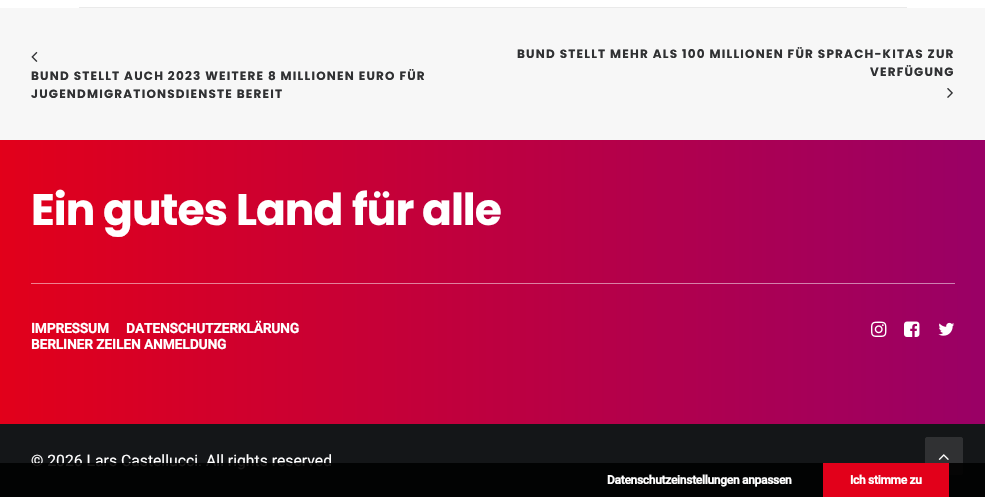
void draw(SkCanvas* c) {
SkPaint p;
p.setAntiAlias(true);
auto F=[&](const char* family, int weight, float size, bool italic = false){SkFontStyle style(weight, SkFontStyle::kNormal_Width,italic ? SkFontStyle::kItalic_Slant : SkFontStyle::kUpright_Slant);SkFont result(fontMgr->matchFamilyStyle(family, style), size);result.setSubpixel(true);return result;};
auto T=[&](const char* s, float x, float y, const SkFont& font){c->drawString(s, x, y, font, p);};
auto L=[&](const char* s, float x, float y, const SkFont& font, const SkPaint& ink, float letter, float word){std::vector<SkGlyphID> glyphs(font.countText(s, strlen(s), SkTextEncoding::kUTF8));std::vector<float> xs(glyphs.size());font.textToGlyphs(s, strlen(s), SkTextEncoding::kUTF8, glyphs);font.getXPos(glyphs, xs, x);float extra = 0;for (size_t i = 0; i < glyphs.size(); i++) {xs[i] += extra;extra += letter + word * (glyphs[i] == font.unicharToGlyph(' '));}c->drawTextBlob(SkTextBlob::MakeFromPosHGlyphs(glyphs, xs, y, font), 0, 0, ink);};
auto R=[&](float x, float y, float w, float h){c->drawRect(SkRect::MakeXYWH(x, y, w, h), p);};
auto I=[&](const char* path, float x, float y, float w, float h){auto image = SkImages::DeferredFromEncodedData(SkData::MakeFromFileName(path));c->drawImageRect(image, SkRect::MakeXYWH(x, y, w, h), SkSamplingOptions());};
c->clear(0xff141618);
p.setColor(0xffffffff);
R(0,0,985,8);
p.setColor(0xffeaeaea);
R(79,7,828,1);
p.setColor(0xfff7f7f7);
R(0,8,985,132);
auto f1 = F("Poppins",700,12);
p.setColor(0xff303133);
L("BUND STELLT MEHR ALS 100 MILLIONEN FÜR SPRACH-KITAS ZUR",517,58,f1,p,1.2,0);
L("VERFÜGUNG",870,76,f1,p,1.2,0);
I("1.png",947,88,6,10);
I("2.png",31,51,7,11);
L("BUND STELLT AUCH 2023 WEITERE 8 MILLIONEN EURO FÜR",31,80,f1,p,1.2,0);
L("JUGENDMIGRATIONSDIENSTE BEREIT",31,98,f1,p,1.2,0);
{
const SkColor colors[] = {0xffe2001a,0xff990066};
const float stops[] = {0,1};
const SkPoint ends[] = {{-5,282}, {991,282}};
p.setShader(SkGradientShader::MakeLinear(ends, colors, stops, 2, SkTileMode::kClamp));
p.setAlpha(255);
}
R(0,140,985,284);
{
const SkColor colors[] = {0xfff1808d,0xffcc80b3};
const float stops[] = {0,1};
const SkPoint ends[] = {{-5,282}, {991,282}};
p.setShader(SkGradientShader::MakeLinear(ends, colors, stops, 2, SkTileMode::kClamp));
p.setAlpha(255);
}
R(31,283,924,1);
auto f2 = F("Poppins",700,44);
p.setShader(nullptr);
p.setColor(0xffffffff);
L("Ein",31,225,f2,p,-1,0);
L("gutes",103,225,f2,p,-1,0);
L("Land",236,225,f2,p,-1,0);
L("für",352,225,f2,p,-1,0);
L("alle",422,225,f2,p,-1,0);
auto f3 = F("Roboto",700,13.6);
T("IMPRESSUM",31,333,f3);
T("DATENSCHUTZERKLÄRUNG",126,333,f3);
T("BERLINER ZEILEN ANMELDUNG",31,349,f3);
I("3.png",871,321,16,16);
I("4.png",904,321,16,16);
I("5.png",938,322,17,14);
auto f4 = F("Roboto",400,15.75);
T("© 2026 Lars Castellucci. All rights reserved",31,466,f4);
p.setColor(0xff303133);
c->drawRoundRect(SkRect::MakeXYWH(925.5,437.5,37,37),1.5,1.5,p);
p.setStroke(true);
p.setStrokeWidth(1);
c->drawRoundRect(SkRect::MakeXYWH(925.5,437.5,37,37),1.5,1.5,p);
I("6.png",938,454,11,6);
p.setStroke(false);
p.setColor(0xe6000000);
R(0,463,985,34);
auto f5 = F("Roboto",700,12);
p.setColor(0xffffffff);
L("Datenschutzeinstellungen anpassen",607,484,f5,p,-.3,0);
p.setColor(0xffe2001a);
R(823,463,126,34);
p.setColor(0xffffffff);
L("Ich stimme zu",850,484,f5,p,-.3,0);
}
